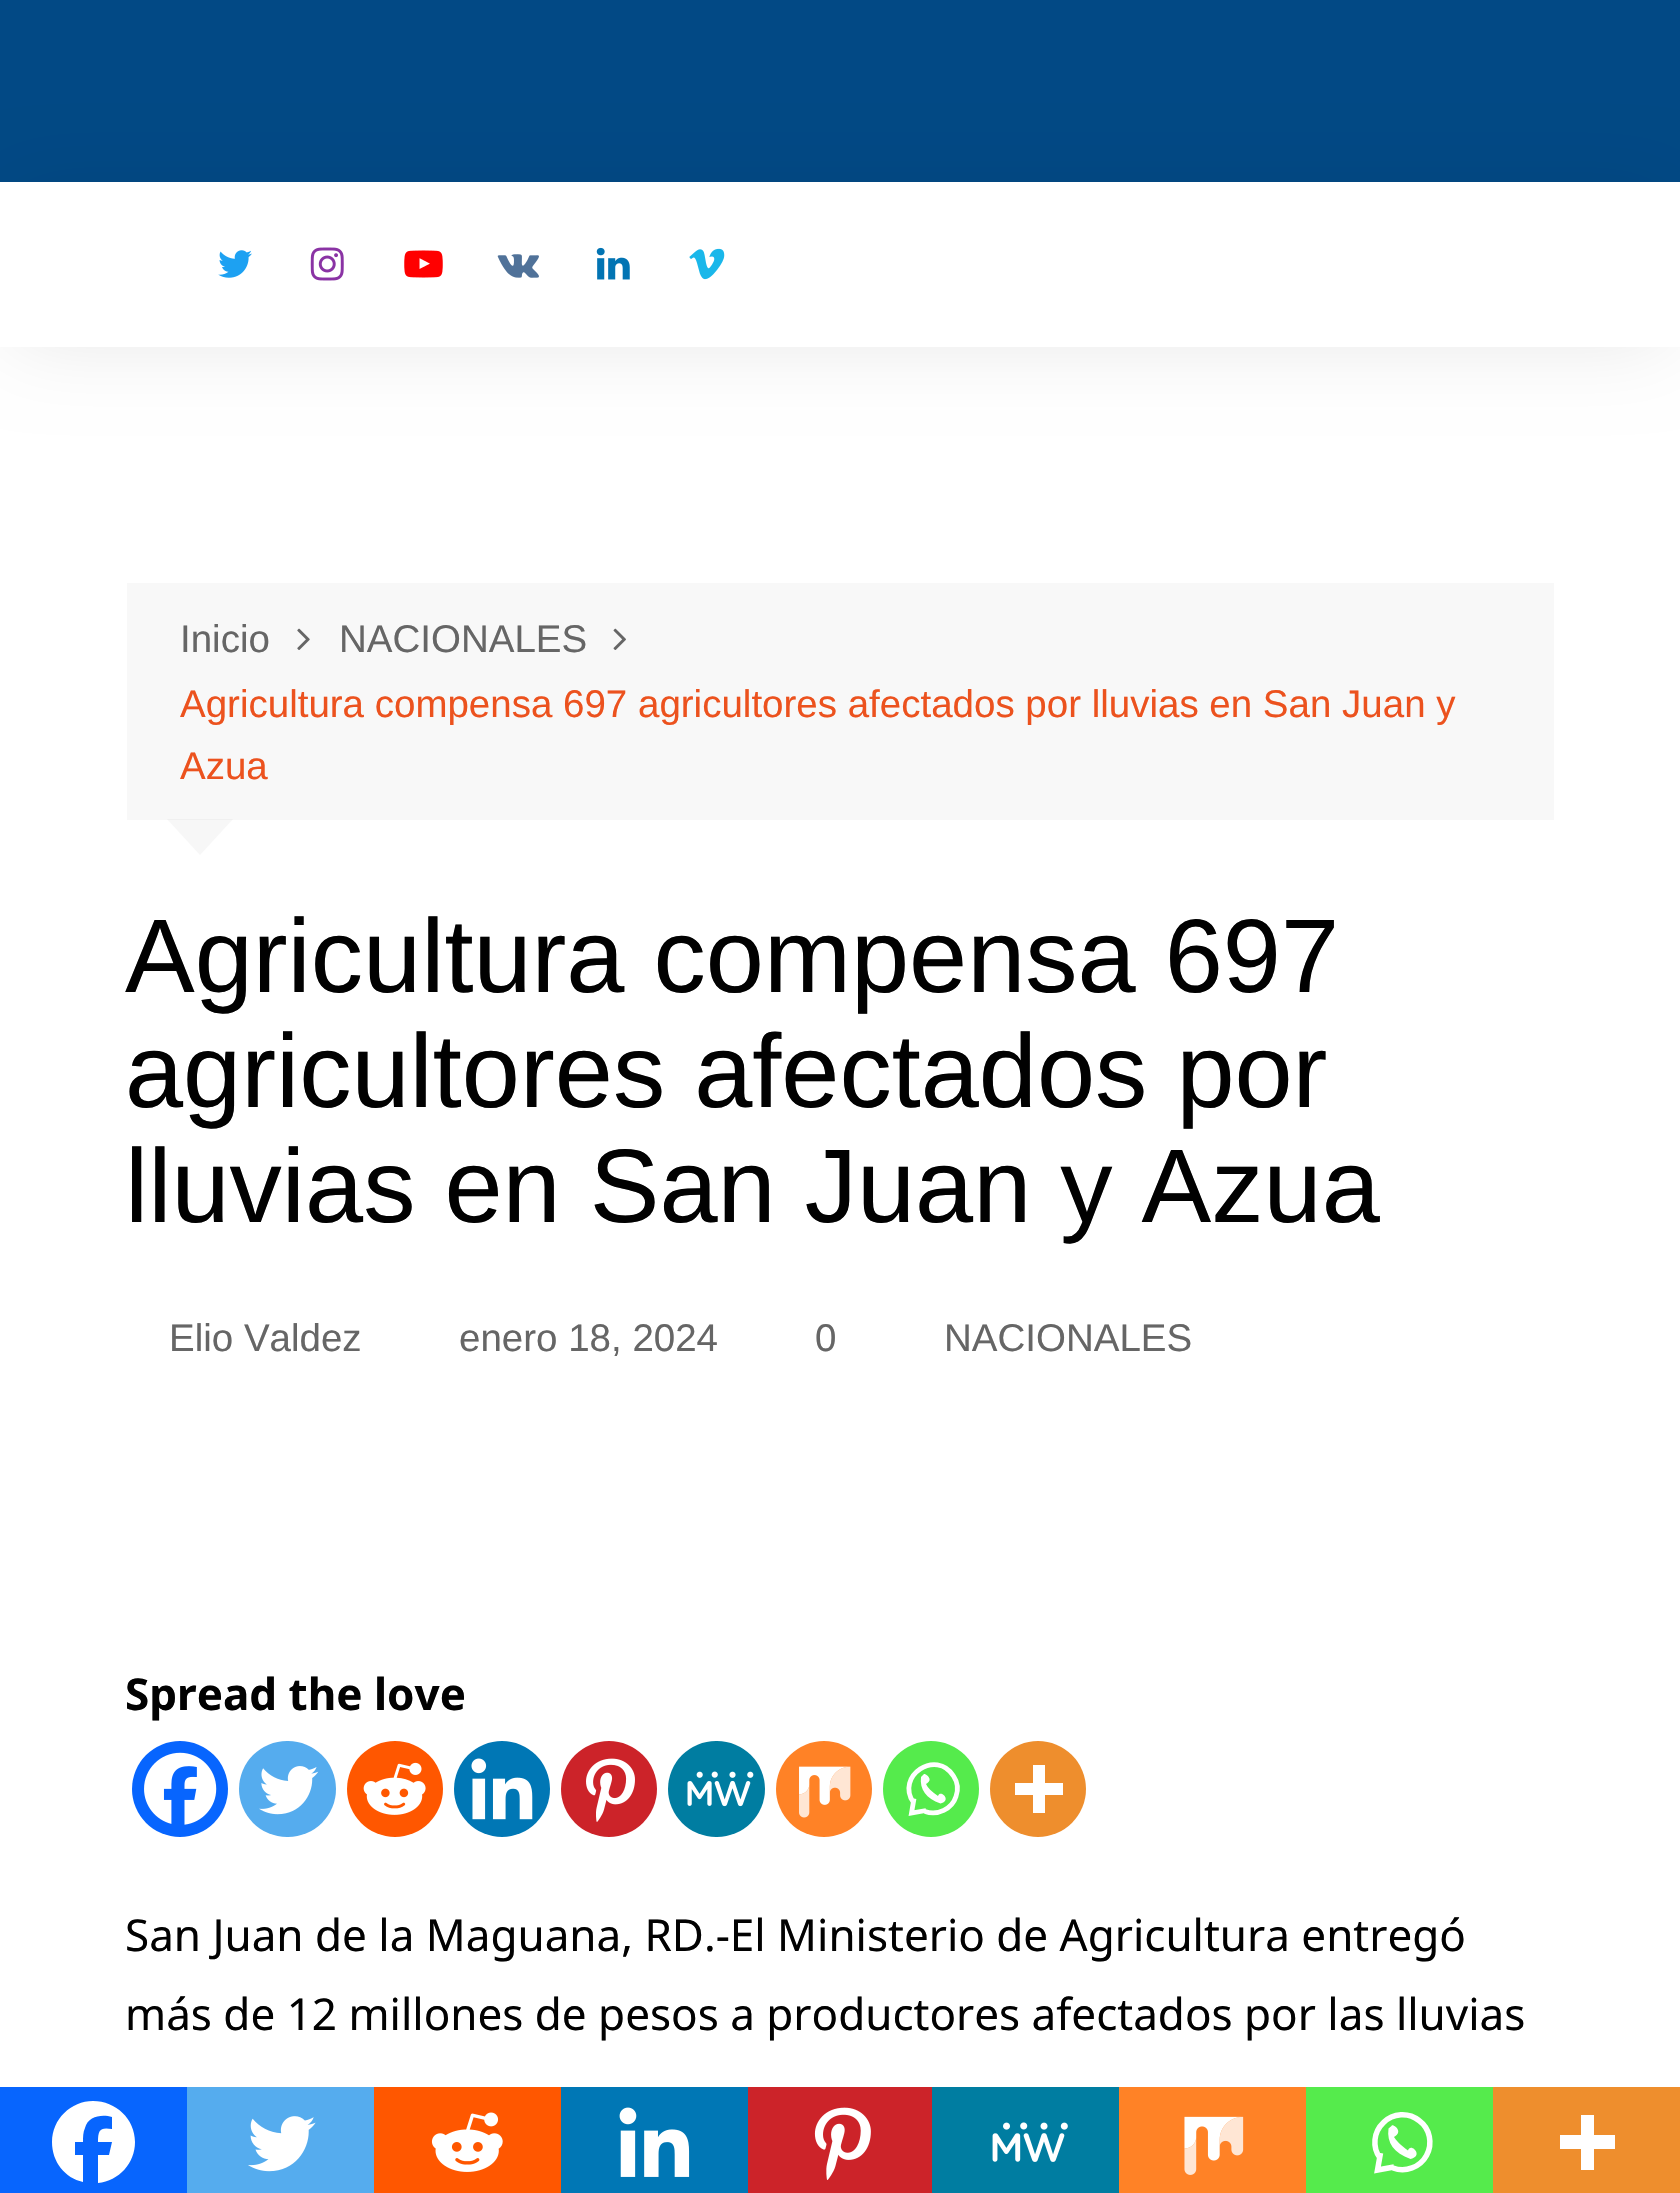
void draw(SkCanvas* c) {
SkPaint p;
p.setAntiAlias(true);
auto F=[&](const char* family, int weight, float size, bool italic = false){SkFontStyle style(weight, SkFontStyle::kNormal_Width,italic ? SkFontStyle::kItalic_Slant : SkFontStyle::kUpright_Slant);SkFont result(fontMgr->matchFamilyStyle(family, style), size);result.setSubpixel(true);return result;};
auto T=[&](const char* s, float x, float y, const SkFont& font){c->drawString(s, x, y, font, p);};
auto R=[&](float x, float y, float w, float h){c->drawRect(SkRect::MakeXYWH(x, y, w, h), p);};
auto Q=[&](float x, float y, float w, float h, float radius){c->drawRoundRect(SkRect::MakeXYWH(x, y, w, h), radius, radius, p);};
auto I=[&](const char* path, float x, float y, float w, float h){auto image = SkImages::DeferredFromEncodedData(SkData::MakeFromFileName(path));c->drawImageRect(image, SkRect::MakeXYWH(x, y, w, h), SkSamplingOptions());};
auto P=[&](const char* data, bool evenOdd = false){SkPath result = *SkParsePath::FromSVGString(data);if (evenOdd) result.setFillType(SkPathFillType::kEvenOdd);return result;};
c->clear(0xffffffff);
p.setColor(0xff024985);
R(0,0,1680,182);
p.setColor(0x1a000000);
p.setMaskFilter(SkMaskFilter::MakeBlur(kNormal_SkBlurStyle, 41));
c->drawRect(SkRect::MakeXYWH(14,201,1653,137),p);
p.setMaskFilter(nullptr);
p.setColor(0xffffffff);
R(0,182,1680,165);
I("1.png",218,250,34,28);
I("2.png",310,247,34,34);
I("3.png",404,250,39,28);
I("4.png",497,254,42,24);
I("5.png",596,247,34,33);
I("6.png",689,248,36,32);
p.setColor(0xfff8f8f8);
R(127,583,1427,237);
auto f1 = F("Liberation Sans",400,38.5);
p.setColor(0xff666666);
T("Inicio",180,652,f1);
I("7.png",297,628,13,22);
T("NACIONALES",339,652,f1);
I("8.png",613,628,13,22);
p.setColor(0xffec521e);
T("Agricultura compensa 697 agricultores afectados por lluvias en San Juan y",180,717,f1);
T("Azua",180,779,f1);
p.setColor(0x08000000);
c->drawPath(P("M167 819h66l-33 36z"),p);
auto f2 = F("Liberation Sans",400,104.5);
p.setColor(0xff010101);
T("Agricultura compensa 697",125,992,f2);
T("agricultores afectados por",125,1107,f2);
T("lluvias en San Juan y Azua",125,1222,f2);
p.setColor(0xff666666);
T("Elio Valdez",169,1351,f1);
T("enero 18, 2024",459,1351,f1);
T("0",815,1351,f1);
T("NACIONALES",944,1351,f1);
auto f3 = F("Noto Sans",700,44);
p.setColor(0xff010101);
T("Spread the love",125,1710,f3);
p.setColor(0xff0765fe);
c->drawCircle(180,1789,48,p);
I("9.png",144,1752,73,73);
p.setColor(0xff55acee);
Q(239,1741,97,96,48);
I("10.png",259,1766,60,49);
p.setColor(0xffff5700);
c->drawCircle(395,1789,48,p);
I("11.png",363,1762,63,53);
p.setColor(0xff0077b5);
c->drawCircle(502,1789,48,p);
I("12.png",471,1758,62,62);
p.setColor(0xffcc2329);
c->drawCircle(609,1789,48,p);
I("13.png",586,1758,49,64);
p.setColor(0xff007da1);
Q(668,1741,97,96,48);
I("14.png",687,1771,67,36);
p.setColor(0xffff8226);
c->drawCircle(824,1789,48,p);
I("15.png",799,1766,52,52);
p.setColor(0xff55eb4c);
c->drawCircle(931,1789,48,p);
p.setStroke(true);
p.setStrokeWidth(4.8);
p.setColor(0xffffffff);
c->drawPath(P("M925 1811.5c12.5 4.5 27-2.5 31-15c2.5-7 1.5-14.5-2.5-20.5c-17-27.5-58.5 0-40 26.5m.5-4l-2.5 14.5l14.5-2.5"),p);
p.setStroke(false);
c->drawPath(P("M921 1777c-1.5 12.5 5 21.5 19.5 26.5c12-2.5 0-14.5-2.5-7.5c-6.5-4.5-10.5-8.5-12-12c9.5-5-2.5-12-2.5-9.5"),p);
p.setColor(0xffee8e2d);
c->drawCircle(1038,1789,48,p);
p.setColor(0xffffffff);
c->drawPath(P("M1045 1783v-18h-12v18h-18v12h18v18h12v-18h18v-12z",true),p);
auto f4 = F("Noto Sans",400,44);
p.setColor(0xff010101);
T("San Juan de la Maguana, RD.-El Ministerio de Agricultura entregó",125,1951,f4);
T("más de 12 millones de pesos a productores afectados por las lluvias",125,2030,f4);
p.setColor(0xff0765fe);
R(0,2087,187,106);
p.setColor(0xffffffff);
c->drawPath(P("M135 2142c0-23-19-41-42-41c-22 0-41 18-41 41c0 20 13 36 31 40v-27h-8v-13h8c0-5 0-10 2-14c3-12 17-14 27-11v12c-12-2-14 1-14 13h14l-3 13h-11v28c21-2 37-20 37-41z"),p);
p.setColor(0xff55acee);
R(187,2087,187,106);
I("16.png",248,2116,68,56);
p.setColor(0xffff5700);
R(374,2087,187,106);
I("17.png",431,2112,72,60);
p.setColor(0xff0077b5);
R(561,2087,187,106);
I("18.png",619,2107,71,70);
p.setColor(0xffcc2329);
R(748,2087,184,106);
I("19.png",814,2107,57,73);
p.setColor(0xff007da1);
R(932,2087,187,106);
I("20.png",992,2122,76,40);
p.setColor(0xffff8226);
R(1119,2087,187,106);
I("21.png",1184,2116,60,59);
p.setColor(0xff55eb4c);
R(1306,2087,187,106);
p.setStroke(true);
p.setStrokeWidth(5.5);
p.setColor(0xffffffff);
c->drawPath(P("M1393 2168c12.5 4.5 27-.5 33.5-12.5c6.5-12 3.5-27-7.5-35c-10.5-8.5-26-7.5-35.5 2c-10 9.5-11.5 24.5-3.5 35.5m.5-5l-3 17l16.5-3"),p);
p.setStroke(false);
c->drawPath(P("M1388.5 2128.5c-2 14.5 5.5 24.5 22 30.5c14-3 0-17-2.5-8.5c-7.5-5.5-12-10-14-13.5c11-6-2.5-14-2.5-11"),p);
p.setColor(0xffee8e2d);
R(1493,2087,187,106);
p.setColor(0xffffffff);
c->drawPath(P("M1594 2135v-20h-13v20h-21v14h21v21h13v-21h21v-14z",true),p);
}
